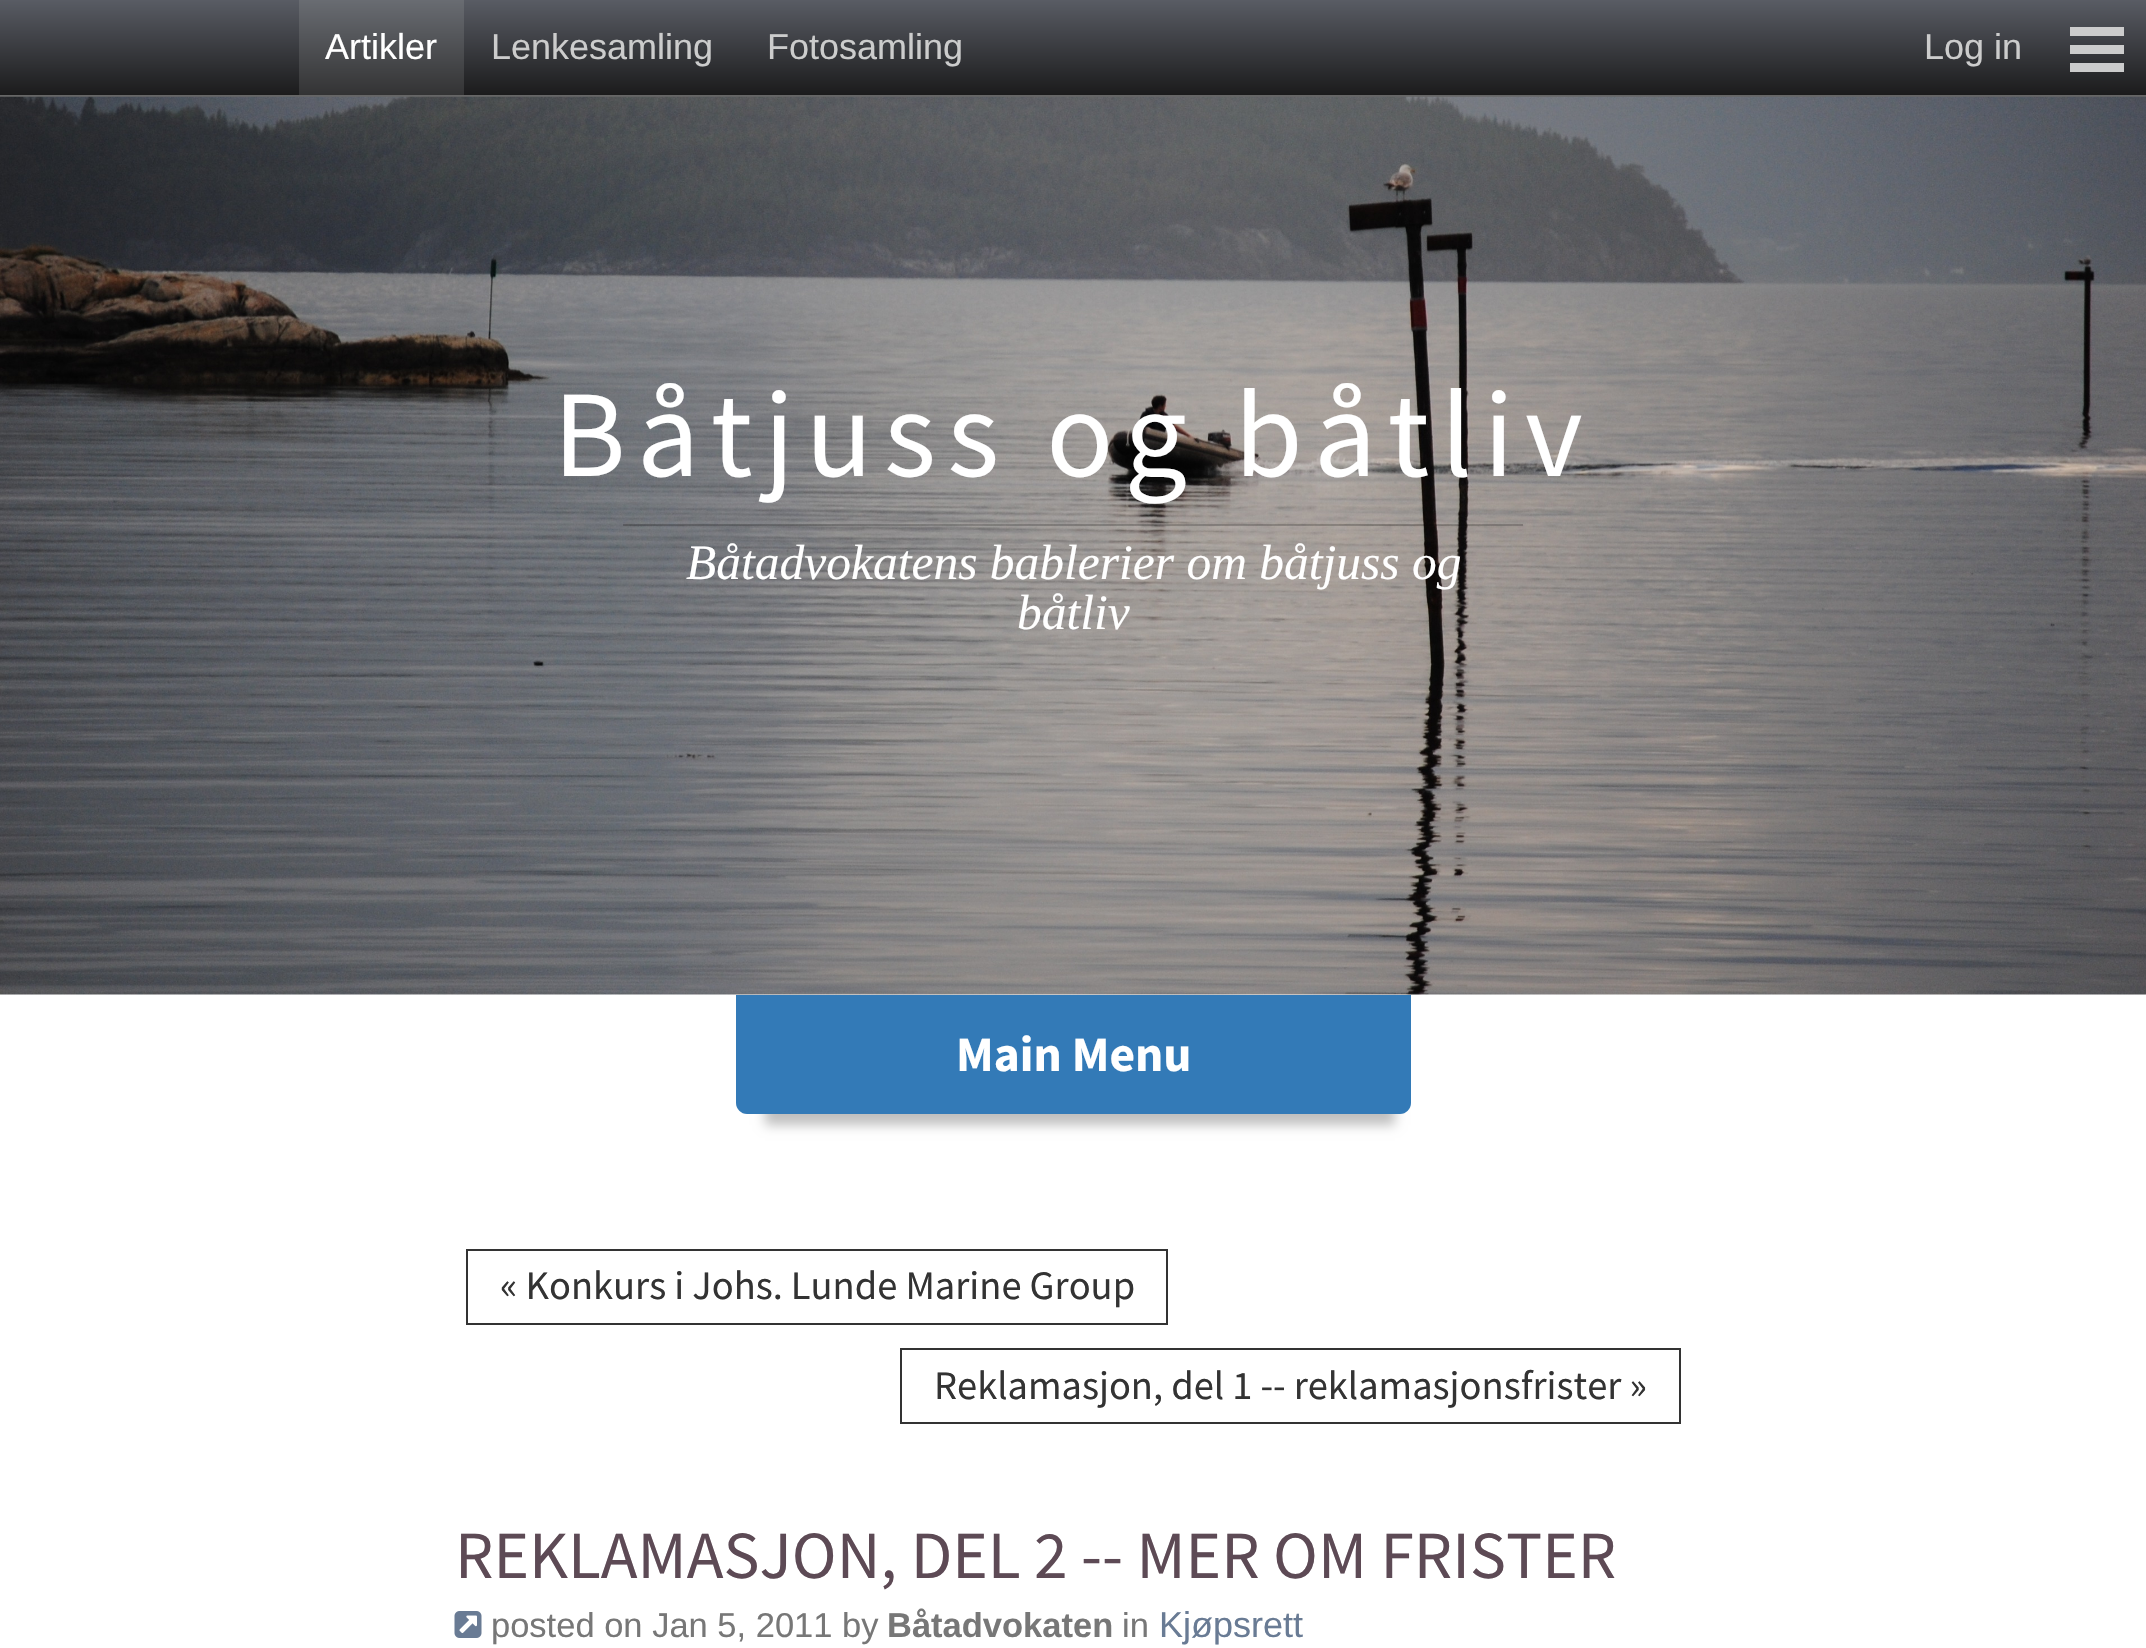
void draw(SkCanvas* c) {
SkPaint p;
p.setAntiAlias(true);
auto F=[&](const char* family, int weight, float size, bool italic = false){SkFontStyle style(weight, SkFontStyle::kNormal_Width,italic ? SkFontStyle::kItalic_Slant : SkFontStyle::kUpright_Slant);SkFont result(fontMgr->matchFamilyStyle(family, style), size);result.setSubpixel(true);return result;};
auto T=[&](const char* s, float x, float y, const SkFont& font){c->drawString(s, x, y, font, p);};
auto L=[&](const char* s, float x, float y, const SkFont& font, const SkPaint& ink, float letter, float word){std::vector<SkGlyphID> glyphs(font.countText(s, strlen(s), SkTextEncoding::kUTF8));std::vector<float> xs(glyphs.size());font.textToGlyphs(s, strlen(s), SkTextEncoding::kUTF8, glyphs);font.getXPos(glyphs, xs, x);float extra = 0;for (size_t i = 0; i < glyphs.size(); i++) {xs[i] += extra;extra += letter + word * (glyphs[i] == font.unicharToGlyph(' '));}c->drawTextBlob(SkTextBlob::MakeFromPosHGlyphs(glyphs, xs, y, font), 0, 0, ink);};
auto R=[&](float x, float y, float w, float h){c->drawRect(SkRect::MakeXYWH(x, y, w, h), p);};
auto I=[&](const char* path, float x, float y, float w, float h){auto image = SkImages::DeferredFromEncodedData(SkData::MakeFromFileName(path));c->drawImageRect(image, SkRect::MakeXYWH(x, y, w, h), SkSamplingOptions());};
auto P=[&](const char* data, bool evenOdd = false){SkPath result = *SkParsePath::FromSVGString(data);if (evenOdd) result.setFillType(SkPathFillType::kEvenOdd);return result;};
c->clear(0xffffffff);
{
const SkColor colors[] = {0xff595c64,0xff1b1b1c};
const float stops[] = {0,1};
const SkPoint ends[] = {{1073,0}, {1073,95}};
p.setShader(SkGradientShader::MakeLinear(ends, colors, stops, 2, SkTileMode::kClamp));
p.setAlpha(255);
}
R(0,0,2146,95);
p.setShader(nullptr);
p.setColor(0xff666666);
R(0,95,2146,2);
{
const SkColor colors[] = {0xff696c72,0xff333334};
const float stops[] = {0,1};
const SkPoint ends[] = {{381,0}, {381,95}};
p.setShader(SkGradientShader::MakeLinear(ends, colors, stops, 2, SkTileMode::kClamp));
p.setAlpha(255);
}
R(299,0,165,95);
auto f1 = F("Liberation Sans",400,36);
p.setShader(nullptr);
p.setColor(0xffffffff);
T("Artikler",325,59,f1);
p.setColor(0xffcccccc);
T("Lenkesamling",491,59,f1);
T("Fotosamling",767,59,f1);
T("Log in",1924,59,f1);
R(2070,27,54,9);
R(2070,45,54,9);
R(2070,63,54,9);
I("1.png",0,96,2146,899);
auto f2 = F("Source Sans Pro",400,123.75);
p.setColor(0xffffffff);
L("Båtjuss og båtliv",553,476,f2,p,11.25,0);
p.setColor(0x33000000);
R(623,524,900,2);
auto f3 = F("Liberation Serif",400,49.5,true);
p.setColor(0xffffffff);
T("Båtadvokatens bablerier om båtjuss og",686,579,f3);
T("båtliv",1017,629,f3);
p.setColor(0x40000000);
p.setMaskFilter(SkMaskFilter::MakeBlur(kNormal_SkBlurStyle, 5.5));
c->drawRect(SkRect::MakeXYWH(765,1051,630,74),p);
p.setMaskFilter(nullptr);
p.setColor(0xff337ab7);
c->drawPath(P("M736 995h675v108c0 6-5 11-11 11h-653c-6 0-11-5-11-11z"),p);
auto f4 = F("Source Sans Pro",700,49.5);
p.setColor(0xffffffff);
T("Main Menu",956,1071,f4);
p.setStroke(true);
p.setStrokeWidth(2);
p.setColor(0xff333333);
c->drawRect(SkRect::MakeXYWH(467,1250,700,74),p);
auto f5 = F("Source Sans Pro",400,40.5);
p.setStroke(false);
T("« Konkurs i Johs. Lunde Marine Group",500,1299,f5);
p.setStroke(true);
c->drawRect(SkRect::MakeXYWH(901,1349,779,74),p);
p.setStroke(false);
T("Reklamasjon, del 1 -- reklamasjonsfrister »",934,1399,f5);
auto f6 = F("Source Sans Pro",400,67.5);
p.setColor(0xff5d4a55);
T("REKLAMASJON, DEL 2 -- MER OM FRISTER",455,1578,f6);
I("2.png",454,1611,28,27);
auto f7 = F("Liberation Sans",400,34.5);
p.setColor(0xff777777);
T("posted on Jan 5, 2011 by",491,1637,f7);
auto f8 = F("Liberation Sans",700,34.5);
T("Båtadvokaten",887,1637,f8);
T("in",1122,1637,f7);
p.setColor(0xff697b94);
T("Kjøpsrett",1159,1637,f1);
}
